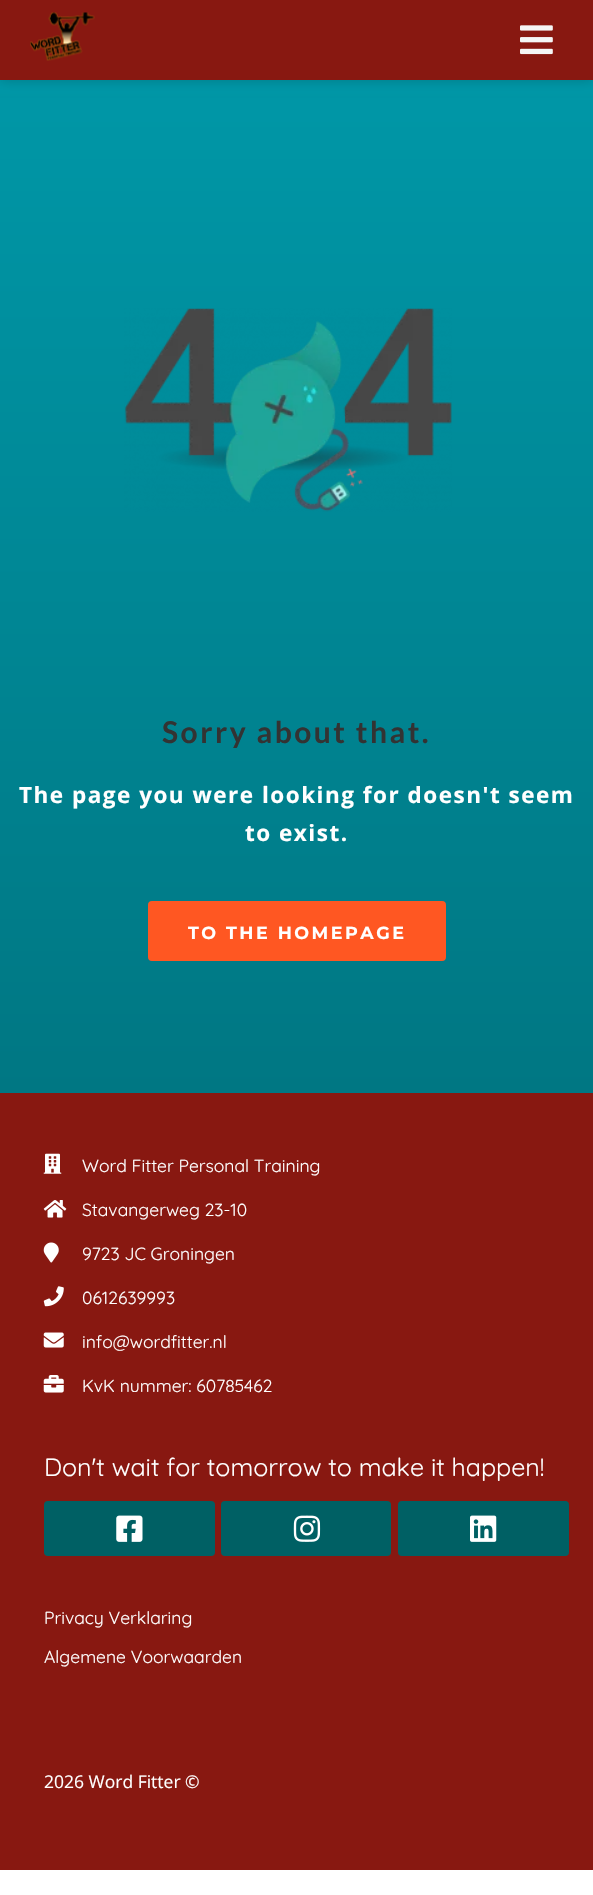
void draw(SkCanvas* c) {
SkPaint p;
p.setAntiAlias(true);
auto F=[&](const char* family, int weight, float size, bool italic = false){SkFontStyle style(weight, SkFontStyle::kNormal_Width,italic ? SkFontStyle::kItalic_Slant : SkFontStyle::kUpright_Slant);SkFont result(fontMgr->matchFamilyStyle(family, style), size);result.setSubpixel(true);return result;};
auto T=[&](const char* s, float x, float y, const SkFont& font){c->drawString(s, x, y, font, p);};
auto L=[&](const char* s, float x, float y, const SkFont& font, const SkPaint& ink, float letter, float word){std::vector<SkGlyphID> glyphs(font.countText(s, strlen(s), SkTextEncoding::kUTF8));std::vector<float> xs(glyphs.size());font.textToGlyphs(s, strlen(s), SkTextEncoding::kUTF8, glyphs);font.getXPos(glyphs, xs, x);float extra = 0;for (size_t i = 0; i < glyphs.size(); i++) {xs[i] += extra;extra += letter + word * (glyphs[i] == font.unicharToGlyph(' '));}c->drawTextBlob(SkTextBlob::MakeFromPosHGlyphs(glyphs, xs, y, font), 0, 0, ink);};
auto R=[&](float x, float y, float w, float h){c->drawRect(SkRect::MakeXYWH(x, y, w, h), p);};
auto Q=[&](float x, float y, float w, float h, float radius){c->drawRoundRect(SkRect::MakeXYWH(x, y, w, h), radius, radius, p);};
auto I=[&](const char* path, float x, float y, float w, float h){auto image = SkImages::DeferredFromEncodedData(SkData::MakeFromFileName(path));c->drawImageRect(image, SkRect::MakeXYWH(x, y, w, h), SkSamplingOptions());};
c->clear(0xffffffff);
{
const SkColor colors[] = {0xff0097a7,0xff007783};
const float stops[] = {0,1};
const SkPoint ends[] = {{297,80}, {297,1093}};
p.setShader(SkGradientShader::MakeLinear(ends, colors, stops, 2, SkTileMode::kClamp));
p.setAlpha(255);
}
R(0,80,593,1013);
p.setShader(nullptr);
p.setColor(0x33000000);
p.setMaskFilter(SkMaskFilter::MakeBlur(kNormal_SkBlurStyle, 6));
c->drawRect(SkRect::MakeXYWH(0,0,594,80),p);
p.setMaskFilter(nullptr);
p.setColor(0xff881811);
R(0,0,593,80);
I("1.png",30,12,65,49);
I("2.png",520,25,33,30);
I("3.png",124,308,328,204);
auto f1 = F("Lato",700,30);
p.setColor(0xff333333);
L("Sorry about that.",162,743,f1,p,2.5,0);
auto f2 = F("Open Sans",700,22.5);
p.setColor(0xffffffff);
L("The page you were looking for doesn't seem",19,803,f2,p,1.5,0);
L("to exist.",245,841,f2,p,1.5,0);
p.setColor(0xffff5722);
c->drawRoundRect(SkRect::MakeXYWH(149.5,902.5,295,57),2.5,2.5,p);
p.setStroke(true);
p.setStrokeWidth(3);
c->drawRoundRect(SkRect::MakeXYWH(149.5,902.5,295,57),2.5,2.5,p);
auto f3 = F("Montserrat",100,17.5);
p.setStroke(false);
p.setColor(0xffffffff);
L("TO THE HOMEPAGE",188,939,f3,p,2.5,0);
p.setColor(0xff881811);
R(0,1093,593,777);
I("4.png",43,1153,19,21);
auto f4 = F("Quicksand",400,17.5);
p.setColor(0xffffffff);
T("Word Fitter Personal Training",82,1172,f4);
I("5.png",43,1200,24,18);
T("Stavangerweg 23-10",82,1216,f4);
I("6.png",43,1242,16,21);
T("9723 JC Groningen",82,1260,f4);
I("7.png",43,1286,21,21);
T("0612639993",82,1304,f4);
I("8.png",43,1332,21,16);
T("info@wordfitter.nl",82,1348,f4);
I("9.png",43,1375,21,18);
T("KvK nummer: 60785462",82,1392,f4);
auto f5 = F("Quicksand",400,25);
T("Don't wait for tomorrow to make it happen!",44,1476,f5);
p.setColor(0xff006064);
Q(44,1501,171,55,4);
I("10.png",116,1515,27,27);
Q(221,1501,170,55,4);
I("11.png",293,1515,28,27);
Q(398,1501,171,55,4);
I("12.png",470,1515,27,27);
p.setColor(0xffffffff);
T("Privacy Verklaring",44,1624,f4);
T("Algemene Voorwaarden",44,1663,f4);
auto f6 = F("Open Sans",400,17.5);
T("2026 Word Fitter ©",44,1788,f6);
}
